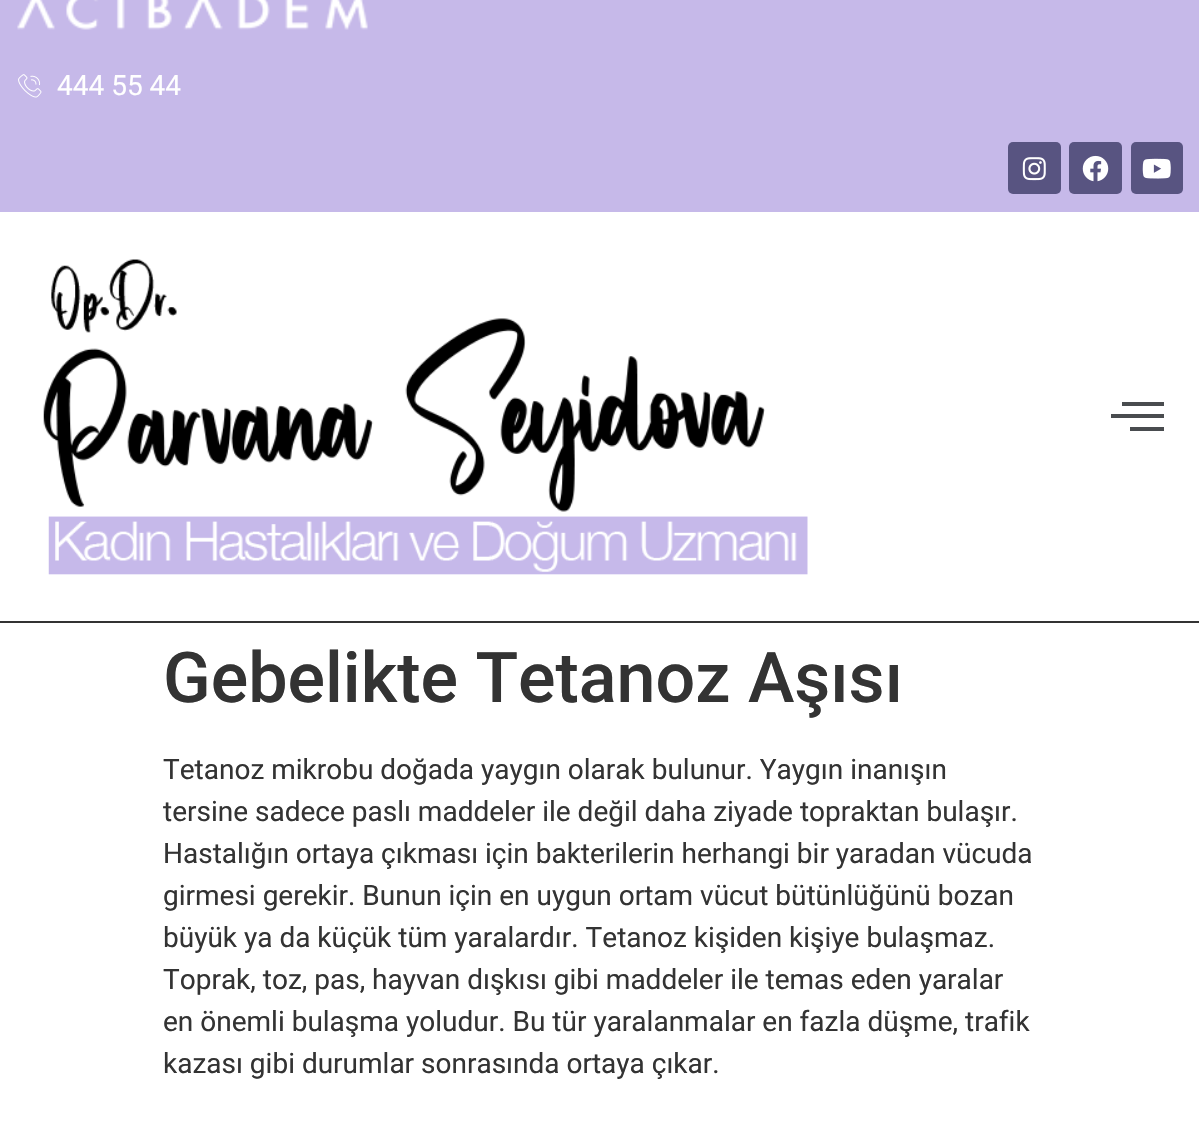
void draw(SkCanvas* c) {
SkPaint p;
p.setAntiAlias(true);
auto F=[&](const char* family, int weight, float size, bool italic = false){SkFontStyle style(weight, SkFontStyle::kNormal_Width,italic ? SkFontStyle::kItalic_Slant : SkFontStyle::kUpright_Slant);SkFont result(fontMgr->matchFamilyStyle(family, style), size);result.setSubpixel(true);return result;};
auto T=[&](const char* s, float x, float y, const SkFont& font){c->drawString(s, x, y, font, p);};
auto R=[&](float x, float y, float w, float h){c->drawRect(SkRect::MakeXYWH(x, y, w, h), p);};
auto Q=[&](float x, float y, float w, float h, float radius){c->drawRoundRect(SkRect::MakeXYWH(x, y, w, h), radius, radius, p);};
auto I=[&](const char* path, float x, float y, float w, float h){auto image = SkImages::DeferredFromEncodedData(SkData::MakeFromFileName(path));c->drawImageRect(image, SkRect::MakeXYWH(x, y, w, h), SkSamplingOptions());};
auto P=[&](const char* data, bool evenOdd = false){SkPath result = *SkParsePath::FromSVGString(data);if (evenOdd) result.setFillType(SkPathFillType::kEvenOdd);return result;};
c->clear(0xffffffff);
p.setColor(0xffc6b9e9);
R(0,0,1199,212);
I("1.png",17,0,351,30);
I("2.png",18,74,24,24);
auto f1 = F("Roboto",400,28);
p.setColor(0xffffffff);
T("444 55 44",57,95,f1);
p.setColor(0xff585481);
Q(1008,142,53,52,5);
I("3.png",1022,157,24,24);
Q(1069,142,53,52,5);
I("4.png",1082,155,27,27);
Q(1131,142,52,52,5);
I("5.png",1142,158,29,21);
p.setColor(0xff333333);
R(0,621,1199,2);
I("6.png",43,259,765,316);
p.setColor(0xff494c4f);
c->drawPath(P("M1111 418h53v-4h-53zm19 13h34v-4h-34zm-8-29v4h42v-4z"),p);
auto f2 = F("Roboto",500,70);
p.setColor(0xff333333);
T("Gebelikte Tetanoz Aşısı",163,702,f2);
T("Tetanoz mikrobu doğada yaygın olarak bulunur. Yaygın inanışın",163,779,f1);
T("tersine sadece paslı maddeler ile değil daha ziyade topraktan bulaşır.",163,821,f1);
T("Hastalığın ortaya çıkması için bakterilerin herhangi bir yaradan vücuda",163,863,f1);
T("girmesi gerekir. Bunun için en uygun ortam vücut bütünlüğünü bozan",163,905,f1);
T("büyük ya da küçük tüm yaralardır. Tetanoz kişiden kişiye bulaşmaz.",163,947,f1);
T("Toprak, toz, pas, hayvan dışkısı gibi maddeler ile temas eden yaralar",163,989,f1);
T("en önemli bulaşma yoludur. Bu tür yaralanmalar en fazla düşme, trafik",163,1031,f1);
T("kazası gibi durumlar sonrasında ortaya çıkar.",163,1073,f1);
}
